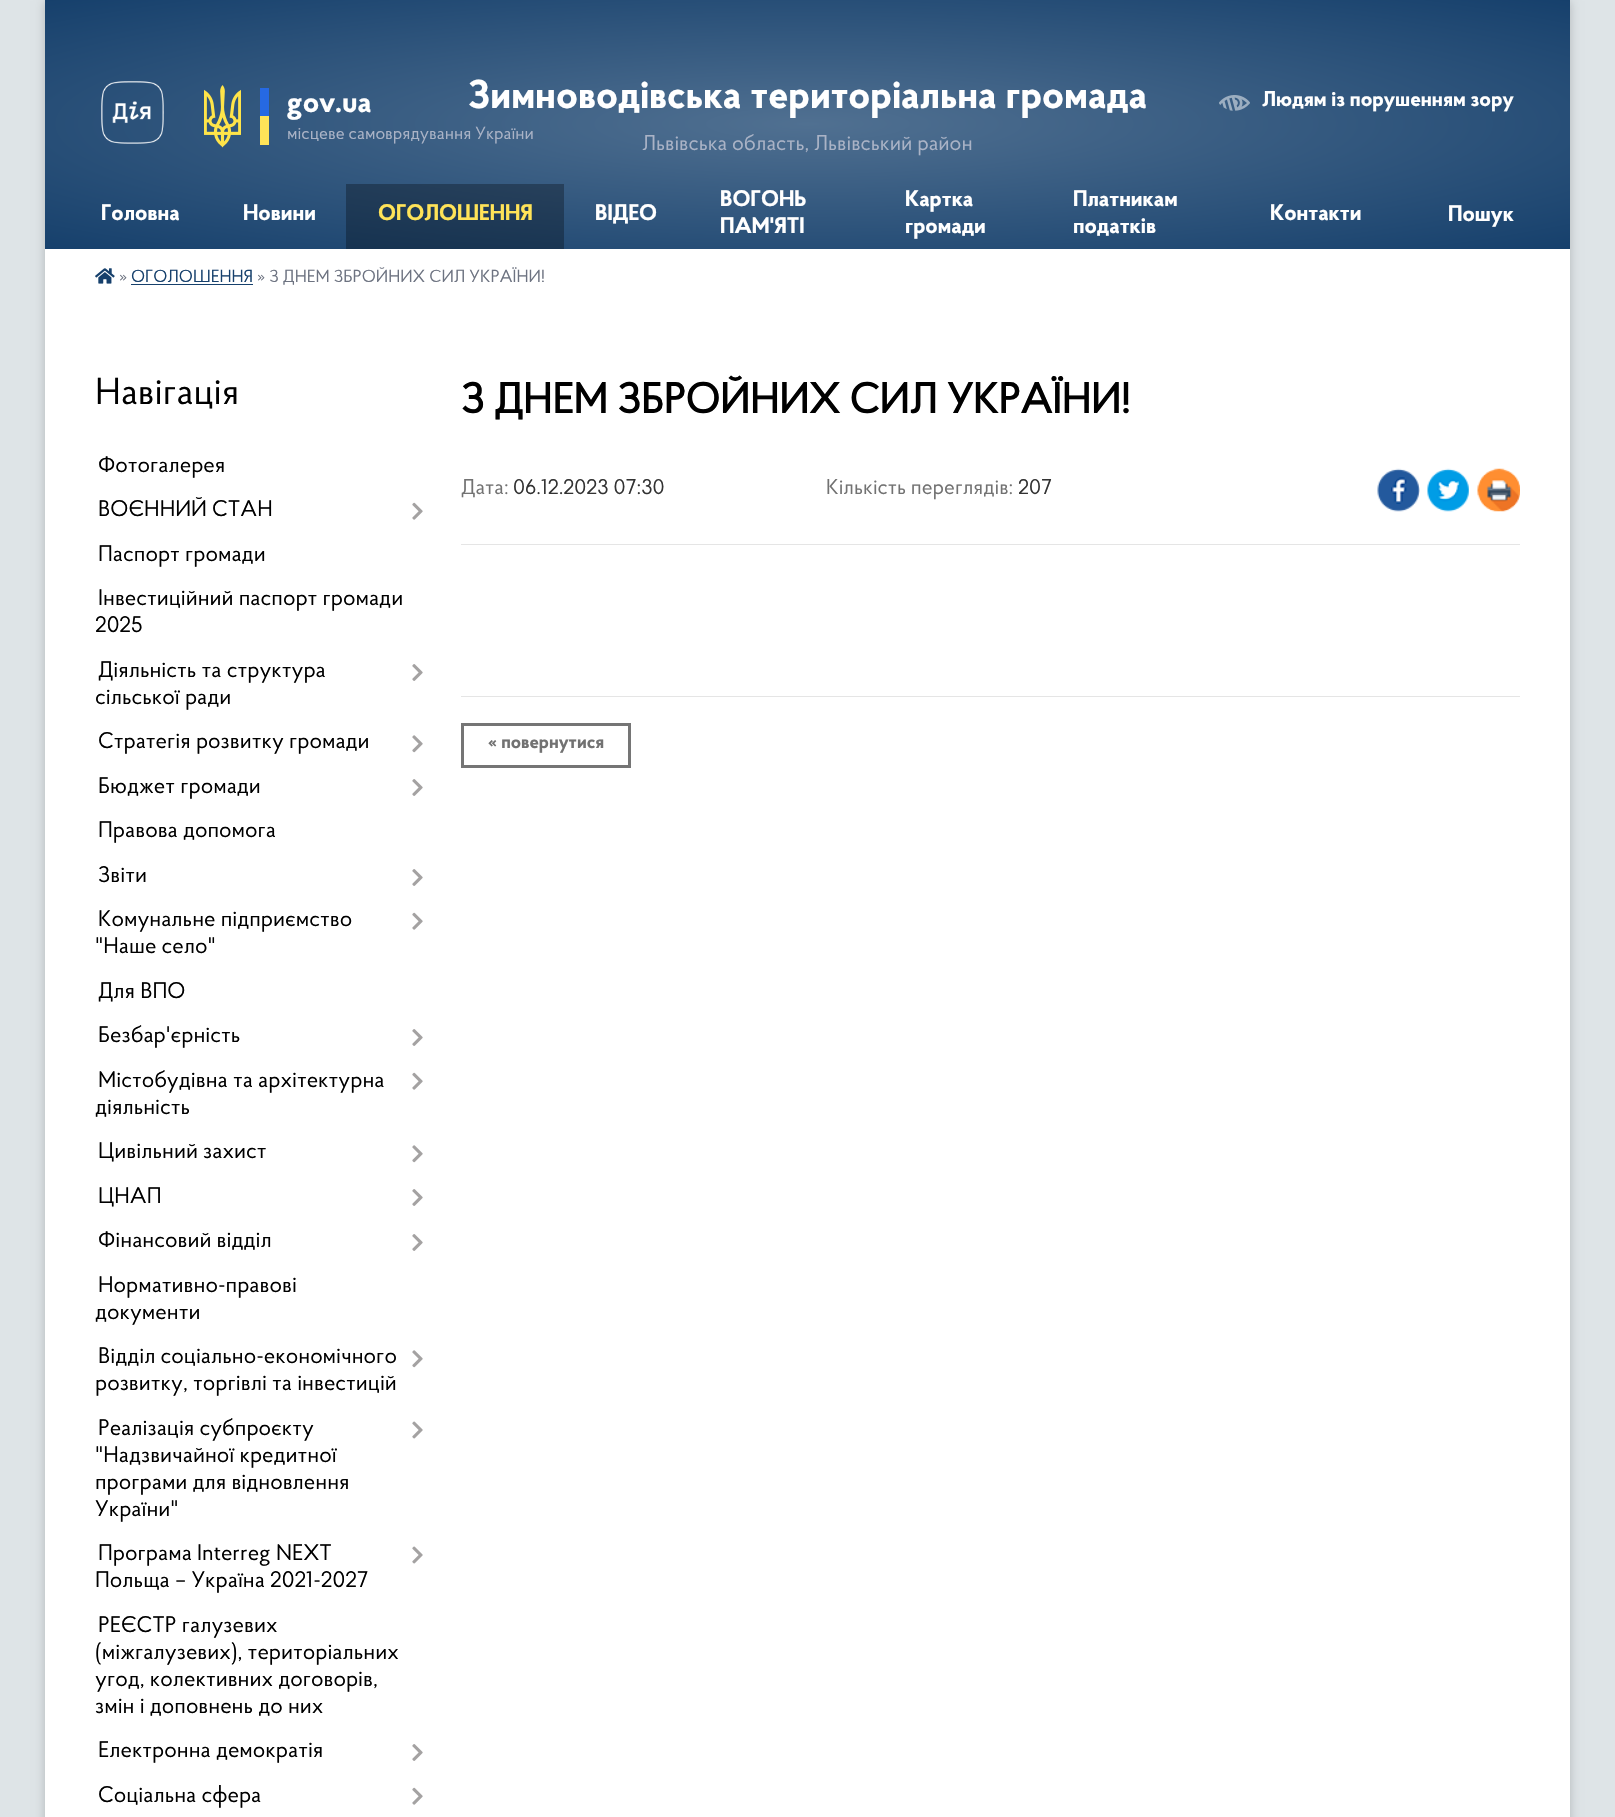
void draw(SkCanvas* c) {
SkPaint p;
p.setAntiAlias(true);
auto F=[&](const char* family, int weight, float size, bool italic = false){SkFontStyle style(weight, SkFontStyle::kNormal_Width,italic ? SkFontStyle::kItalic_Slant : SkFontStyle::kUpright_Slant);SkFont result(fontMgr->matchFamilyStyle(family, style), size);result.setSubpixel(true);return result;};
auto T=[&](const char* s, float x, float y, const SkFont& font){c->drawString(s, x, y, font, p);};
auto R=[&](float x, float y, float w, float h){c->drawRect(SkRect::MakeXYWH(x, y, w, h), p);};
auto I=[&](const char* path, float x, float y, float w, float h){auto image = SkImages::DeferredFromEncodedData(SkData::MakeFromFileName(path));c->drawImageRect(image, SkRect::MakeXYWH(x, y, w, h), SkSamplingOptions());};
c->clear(0xffdee4e7);
p.setColor(0x33000000);
p.setMaskFilter(SkMaskFilter::MakeBlur(kNormal_SkBlurStyle, 5));
c->drawRect(SkRect::MakeXYWH(45,1,1525,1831),p);
p.setMaskFilter(nullptr);
p.setColor(0xffffffff);
R(45,249,1525,1568);
{
const SkColor colors[] = {0xff507091,0xff16406c};
const float stops[] = {0,1};
SkMatrix m = SkMatrix::Translate(808,124).preScale(1078,176);
p.setShader(SkGradientShader::MakeRadial({0, 0}, 1, colors, stops, 2, SkTileMode::kClamp, 0, &m));
p.setAlpha(255);
}
R(45,0,1525,249);
{
const SkColor colors[] = {0xff384e66,0xff0f2d4c};
const float stops[] = {0,1};
SkMatrix m = SkMatrix::Translate(808,124).preScale(1078,176);
p.setShader(SkGradientShader::MakeRadial({0, 0}, 1, colors, stops, 2, SkTileMode::kClamp, 0, &m));
p.setAlpha(255);
}
R(346,184,218,65);
I("1.png",101,81,63,63);
I("2.png",204,85,37,63);
p.setShader(nullptr);
p.setColor(0xff2669e3);
R(260,88,9,28);
p.setColor(0xffffe358);
R(260,116,9,29);
auto f1 = F("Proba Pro",700,30);
p.setColor(0xffffffff);
T("gov.ua",287,112,f1);
auto f2 = F("Proba Pro",400,17.5);
p.setColor(0xffaab3c6);
T("місцеве самоврядування України",287,139,f2);
auto f3 = F("Proba Pro",700,40);
p.setColor(0xffffffff);
T("Зимноводівська територіальна громада",468,108,f3);
auto f4 = F("Proba Pro",400,21.25);
p.setColor(0xffaab3c6);
T("Львівська область, Львівський район",642,150,f4);
I("3.png",1219,95,31,16);
auto f5 = F("Proba Pro",700,21.25);
p.setColor(0xffffffff);
T("Людям із порушенням зору",1262,106,f5);
auto f6 = F("Proba Pro",700,22.5);
T("Головна",101,220,f6);
T("Новини",243,220,f6);
p.setColor(0xffffe358);
T("ОГОЛОШЕННЯ",378,220,f6);
p.setColor(0xffffffff);
T("ВІДЕО",595,220,f6);
T("ВОГОНЬ",720,206,f6);
T("ПАМ'ЯТІ",720,233,f6);
T("Картка",905,206,f6);
T("громади",905,233,f6);
T("Платникам",1073,206,f6);
T("податків",1073,233,f6);
T("Контакти",1270,220,f6);
T("Пошук",1448,221,f6);
I("4.png",95,268,20,16);
p.setColor(0xff6d7381);
T("»",119,282,f2);
p.setColor(0xff16406c);
T("ОГОЛОШЕННЯ",131,282,f2);
R(131,284,122,1);
p.setColor(0xff6d7381);
T("» З ДНЕМ ЗБРОЙНИХ СИЛ УКРАЇНИ!",257,282,f2);
auto f7 = F("Proba Pro",400,37.5);
p.setColor(0xff000000);
T("Навігація",95,404,f7);
auto f8 = F("Proba Pro",400,22.5);
T("Фотогалерея",98,472,f8);
T("ВОЄННИЙ СТАН",98,516,f8);
I("5.png",412,502,11,18);
T("Паспорт громади",98,561,f8);
T("Інвестиційний паспорт громади",98,605,f8);
T("2025",95,632,f8);
T("Діяльність та структура",98,677,f8);
T("сільської ради",95,704,f8);
I("6.png",412,664,11,17);
T("Стратегія розвитку громади",98,748,f8);
I("7.png",412,735,11,18);
T("Бюджет громади",98,793,f8);
I("6.png",412,779,11,17);
T("Правова допомога",98,837,f8);
T("Звіти",98,882,f8);
I("6.png",412,869,11,17);
T("Комунальне підприємство",98,926,f8);
T("\"Наше село\"",95,953,f8);
I("5.png",412,912,11,18);
T("Для ВПО",98,998,f8);
T("Безбар'єрність",98,1042,f8);
I("6.png",412,1029,11,17);
T("Містобудівна та архітектурна",98,1087,f8);
T("діяльність",95,1114,f8);
I("5.png",412,1072,11,18);
T("Цивільний захист",98,1158,f8);
I("7.png",412,1145,11,18);
T("ЦНАП",98,1203,f8);
I("6.png",412,1189,11,17);
T("Фінансовий відділ",98,1247,f8);
I("6.png",412,1234,11,17);
T("Нормативно-правові",98,1292,f8);
T("документи",95,1319,f8);
T("Відділ соціально-економічного",98,1363,f8);
T("розвитку, торгівлі та інвестицій",95,1390,f8);
I("7.png",412,1350,11,18);
T("Реалізація субпроєкту",98,1435,f8);
T("\"Надзвичайної кредитної",95,1462,f8);
T("програми для відновлення",95,1489,f8);
T("України\"",95,1516,f8);
I("8.png",412,1421,11,18);
T("Програма Interreg NEXT",98,1560,f8);
T("Польща – Україна 2021-2027",95,1587,f8);
I("8.png",412,1546,11,18);
T("РЕЄСТР галузевих",98,1632,f8);
T("(міжгалузевих), територіальних",95,1659,f8);
T("угод, колективних договорів,",95,1686,f8);
T("змін і доповнень до них",95,1713,f8);
T("Електронна демократія",98,1757,f8);
I("6.png",412,1744,11,17);
T("Соціальна сфера",98,1802,f8);
I("5.png",412,1787,11,18);
auto f9 = F("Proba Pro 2",700,42.5);
T("З ДНЕМ ЗБРОЙНИХ СИЛ УКРАЇНИ!",461,413,f9);
p.setColor(0xff727272);
T("Дата:",461,494,f4);
p.setColor(0xff333333);
T("06.12.2023 07:30",513,494,f4);
p.setColor(0xff727272);
T("Кількість переглядів:",826,494,f4);
p.setColor(0xff333333);
T("207",1018,494,f4);
I("9.png",1377,468,43,44);
I("10.png",1427,468,42,44);
I("11.png",1477,468,43,44);
p.setColor(0xffe5e5e5);
R(461,544,1059,1);
R(461,696,1059,1);
p.setStroke(true);
p.setStrokeWidth(3);
p.setColor(0xff757575);
c->drawRect(SkRect::MakeXYWH(462.5,724.5,167,42),p);
auto f10 = F("Proba Pro",700,18.75);
p.setStroke(false);
p.setColor(0xff727272);
T("« повернутися",488,748,f10);
}
